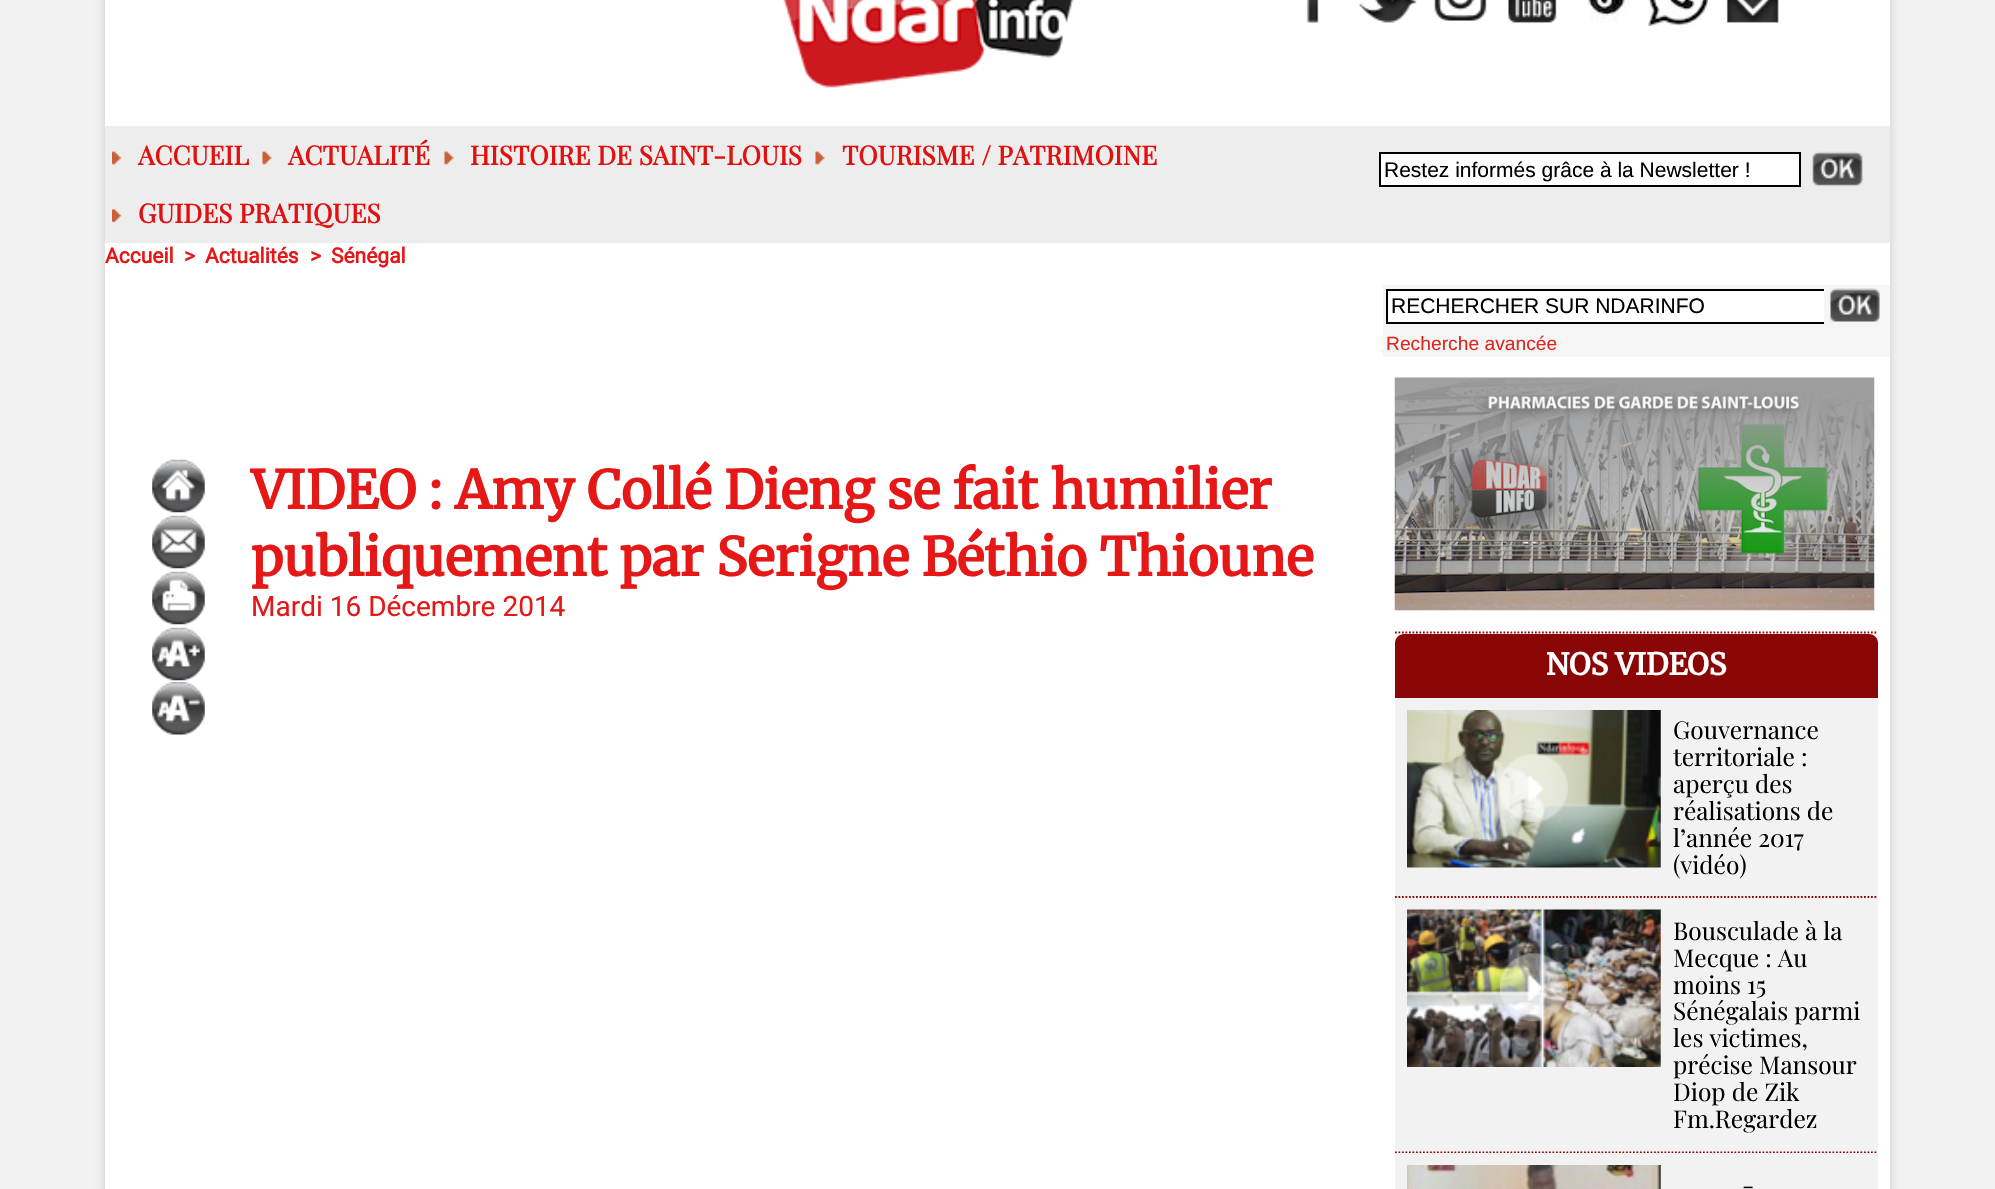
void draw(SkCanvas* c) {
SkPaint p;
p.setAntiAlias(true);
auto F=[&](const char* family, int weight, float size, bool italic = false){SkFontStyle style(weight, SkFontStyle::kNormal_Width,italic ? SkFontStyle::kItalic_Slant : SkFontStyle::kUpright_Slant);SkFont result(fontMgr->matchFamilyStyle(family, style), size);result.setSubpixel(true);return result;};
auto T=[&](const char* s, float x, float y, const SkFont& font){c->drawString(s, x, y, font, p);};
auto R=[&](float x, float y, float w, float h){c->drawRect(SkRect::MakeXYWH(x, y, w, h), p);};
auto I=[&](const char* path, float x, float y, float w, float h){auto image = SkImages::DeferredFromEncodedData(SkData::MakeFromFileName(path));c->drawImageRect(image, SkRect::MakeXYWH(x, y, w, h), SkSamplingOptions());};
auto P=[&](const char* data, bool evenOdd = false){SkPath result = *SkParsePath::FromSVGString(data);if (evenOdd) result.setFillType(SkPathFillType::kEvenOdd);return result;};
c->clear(0xfff2f2f2);
p.setColor(0xffcccccc);
p.setMaskFilter(SkMaskFilter::MakeBlur(kNormal_SkBlurStyle, 5));
c->drawRect(SkRect::MakeXYWH(105,-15,1785,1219),p);
p.setMaskFilter(nullptr);
p.setColor(0xffffffff);
R(105,0,1785,1189);
I("1.png",783,0,291,88);
I("2.png",1306,0,13,23);
I("3.png",1359,0,58,23);
I("4.png",1434,0,53,21);
I("5.png",1508,0,49,23);
I("6.png",1587,0,42,22);
I("7.png",1648,0,60,26);
I("8.png",1726,0,53,23);
p.setColor(0xffededed);
R(105,126,1785,117);
I("9.png",112,151,10,14);
auto f1 = F("Playfair Display",700,26.25);
p.setColor(0xffe31010);
T("ACCUEIL",138,165,f1);
I("10.png",262,151,10,14);
T("ACTUALITÉ",288,165,f1);
I("11.png",444,151,10,14);
T("HISTOIRE DE SAINT-LOUIS",470,165,f1);
I("11.png",815,151,10,14);
T("TOURISME / PATRIMOINE",842,165,f1);
I("12.png",112,209,10,14);
T("GUIDES PRATIQUES",138,223,f1);
p.setColor(0xffffffff);
c->drawRect(SkRect::MakeXYWH(1380,153,420,33),p);
p.setStroke(true);
p.setStrokeWidth(2);
p.setColor(0xff000000);
c->drawRect(SkRect::MakeXYWH(1380,153,420,33),p);
auto f2 = F("Liberation Sans",400,21);
p.setStroke(false);
T("Restez informés grâce à la Newsletter !",1384,177,f2);
I("13.png",1812,151,51,35);
auto f3 = F("Roboto",700,21);
p.setColor(0xffe61717);
T("Accueil",105,263,f3);
T(">",184,263,f3);
T("Actualités",205,263,f3);
T(">",310,263,f3);
T("Sénégal",331,263,f3);
I("14.png",152,459,53,54);
I("15.png",152,515,53,54);
I("16.png",152,571,53,54);
I("17.png",152,627,53,54);
I("18.png",152,682,53,53);
auto f4 = F("Merriweather",700,52.5);
T("VIDEO : Amy Collé Dieng se fait humilier",251,509,f4);
T("publiquement par Serigne Béthio Thioune",251,576,f4);
auto f5 = F("Roboto",400,28);
T("Mardi 16 Décembre 2014",251,616,f5);
p.setColor(0xfff5f5f5);
R(1383,285,507,72);
p.setColor(0xffffffff);
R(1388,291,436,31);
p.setColor(0xff000000);
R(1386,289,438,2);
R(1386,322,438,2);
R(1386,289,2,35);
T("RECHERCHER SUR NDARINFO",1391,313,f2);
I("19.png",1830,288,50,34);
auto f6 = F("Liberation Sans",400,19.25);
p.setColor(0xffdc281e);
T("Recherche avancée",1386,350,f6);
I("20.png",1394,377,481,234);
p.setStroke(true);
p.setStrokeWidth(1.8);
p.setColor(0xff8a0505);
p.setPathEffect(SkDashPathEffect::Make({{1.75f,1.75f}}, 0));
c->drawPath(P("M1395 632.5h483"),p);
p.setPathEffect(nullptr);
p.setStroke(false);
c->drawPath(P("M1404 634h465c5 0 9 4 9 9v55h-483v-55c0-5 4-9 9-9z"),p);
auto f7 = F("Merriweather",700,29.75);
p.setColor(0xffffffff);
T("NOS VIDEOS",1546,675,f7);
p.setColor(0xfff2f2f2);
R(1395,698,483,455);
p.setStroke(true);
p.setColor(0xff8a0505);
p.setPathEffect(SkDashPathEffect::Make({{1.75f,1.75f}}, 0));
c->drawPath(P("M1395 897h483"),p);
p.setPathEffect(nullptr);
I("21.png",1407,710,254,158);
I("22.png",1500,754,68,68);
auto f8 = F("Playfair Display",400,24.5);
p.setStroke(false);
p.setColor(0xff000000);
T("Gouvernance",1673,739,f8);
T("territoriale :",1673,766,f8);
T("aperçu des",1673,793,f8);
T("réalisations de",1673,820,f8);
T("l’année 2017",1673,847,f8);
T("(vidéo)",1673,874,f8);
p.setStroke(true);
p.setColor(0xff8a0505);
p.setPathEffect(SkDashPathEffect::Make({{1.75f,1.75f}}, 0));
c->drawPath(P("M1395 1152.5h483"),p);
p.setPathEffect(nullptr);
I("23.png",1407,909,254,158);
I("24.png",1499,953,69,69);
p.setStroke(false);
p.setColor(0xff000000);
T("Bousculade à la",1673,940,f8);
T("Mecque : Au",1673,967,f8);
T("moins 15",1673,994,f8);
T("Sénégalais parmi",1673,1020,f8);
T("les victimes,",1673,1047,f8);
T("précise Mansour",1673,1074,f8);
T("Diop de Zik",1673,1101,f8);
T("Fm.Regardez",1673,1128,f8);
p.setColor(0xfff2f2f2);
R(1395,1153,483,36);
I("25.png",1407,1165,254,24);
p.setColor(0xff000000);
T("-",1742,1194,f8);
}
